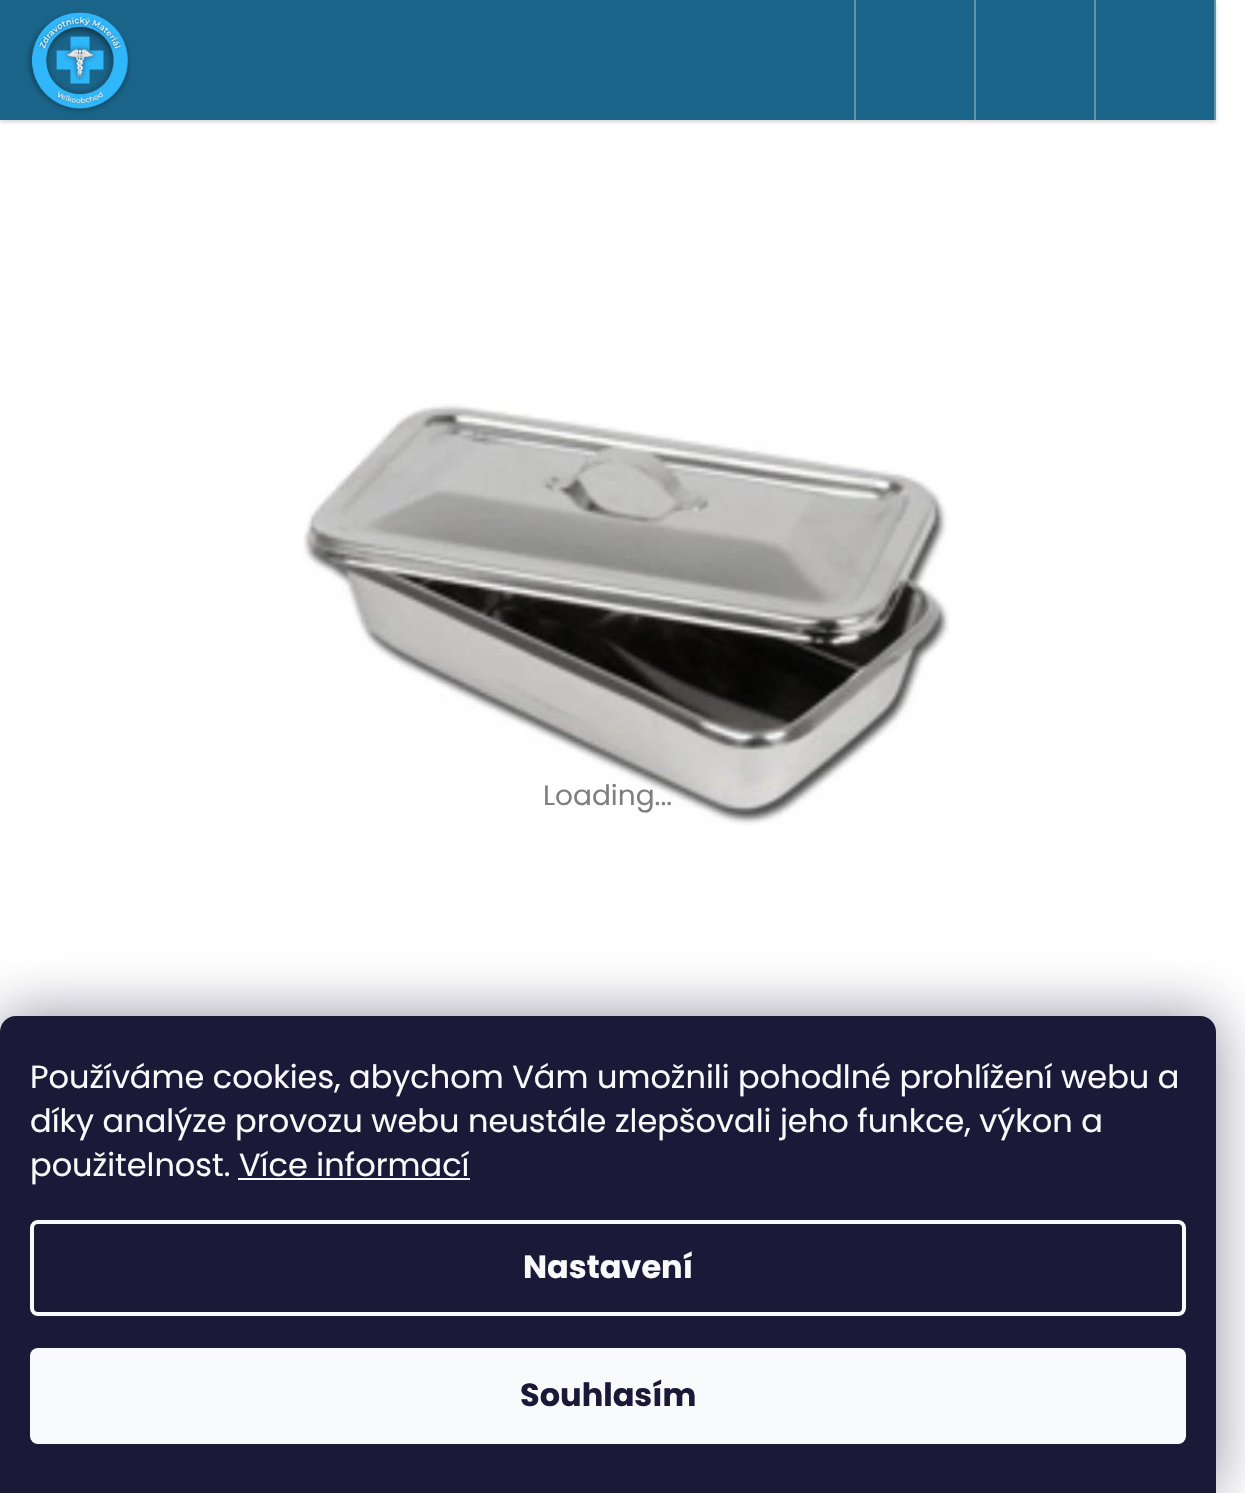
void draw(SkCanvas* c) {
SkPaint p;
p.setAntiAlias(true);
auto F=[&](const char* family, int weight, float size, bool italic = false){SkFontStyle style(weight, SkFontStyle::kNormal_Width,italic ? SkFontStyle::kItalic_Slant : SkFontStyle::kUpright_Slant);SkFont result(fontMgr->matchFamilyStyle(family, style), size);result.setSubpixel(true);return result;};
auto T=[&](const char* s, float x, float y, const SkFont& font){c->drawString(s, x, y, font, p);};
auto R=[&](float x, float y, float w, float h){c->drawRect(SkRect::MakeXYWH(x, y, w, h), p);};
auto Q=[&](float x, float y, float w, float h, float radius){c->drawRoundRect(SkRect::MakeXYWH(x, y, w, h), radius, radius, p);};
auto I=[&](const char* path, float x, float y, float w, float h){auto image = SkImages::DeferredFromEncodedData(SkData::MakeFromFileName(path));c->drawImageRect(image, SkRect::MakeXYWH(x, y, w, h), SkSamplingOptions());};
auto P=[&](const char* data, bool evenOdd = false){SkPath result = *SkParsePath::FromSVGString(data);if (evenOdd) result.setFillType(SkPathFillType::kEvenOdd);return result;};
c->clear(0xffffffff);
p.setColor(0x29000000);
p.setMaskFilter(SkMaskFilter::MakeBlur(kNormal_SkBlurStyle, 2));
c->drawRect(SkRect::MakeXYWH(0,2,1216,120),p);
p.setMaskFilter(nullptr);
p.setColor(0xff1a648a);
R(0,0,1214,120);
I("1.png",26,11,106,103);
p.setColor(0xff5f93ad);
R(1214,0,2,120);
R(854,0,2,120);
R(974,0,2,120);
R(1094,0,2,120);
I("2.png",303,404,647,422);
auto f1 = F("Poppins",400,28);
p.setColor(0xff7f7f7f);
T("Loading...",543,805,f1);
p.setColor(0x801b1939);
p.setMaskFilter(SkMaskFilter::MakeBlur(kNormal_SkBlurStyle, 30));
c->drawRoundRect(SkRect::MakeXYWH(0,1016,1216,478),16,16,p);
p.setMaskFilter(nullptr);
p.setColor(0xff1a1937);
c->drawPath(P("M16 1016h1184c9 0 16 7 16 16v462h-1216v-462c0-9 7-16 16-16z"),p);
auto f2 = F("Poppins",400,32);
p.setColor(0xfff8fafb);
T("Používáme cookies, abychom Vám umožnili pohodlné prohlížení webu a",30,1088,f2);
T("díky analýze provozu webu neustále zlepšovali jeho funkce, výkon a",30,1132,f2);
T("použitelnost. Více informací",30,1176,f2);
R(238,1178,232,2);
p.setStroke(true);
p.setStrokeWidth(4);
c->drawRoundRect(SkRect::MakeXYWH(32,1222,1152,92),6,6,p);
auto f3 = F("Poppins",700,32);
p.setStroke(false);
T("Nastavení",523,1278,f3);
Q(30,1348,1156,96,8);
p.setColor(0xff1a1937);
T("Souhlasím",520,1406,f3);
}
